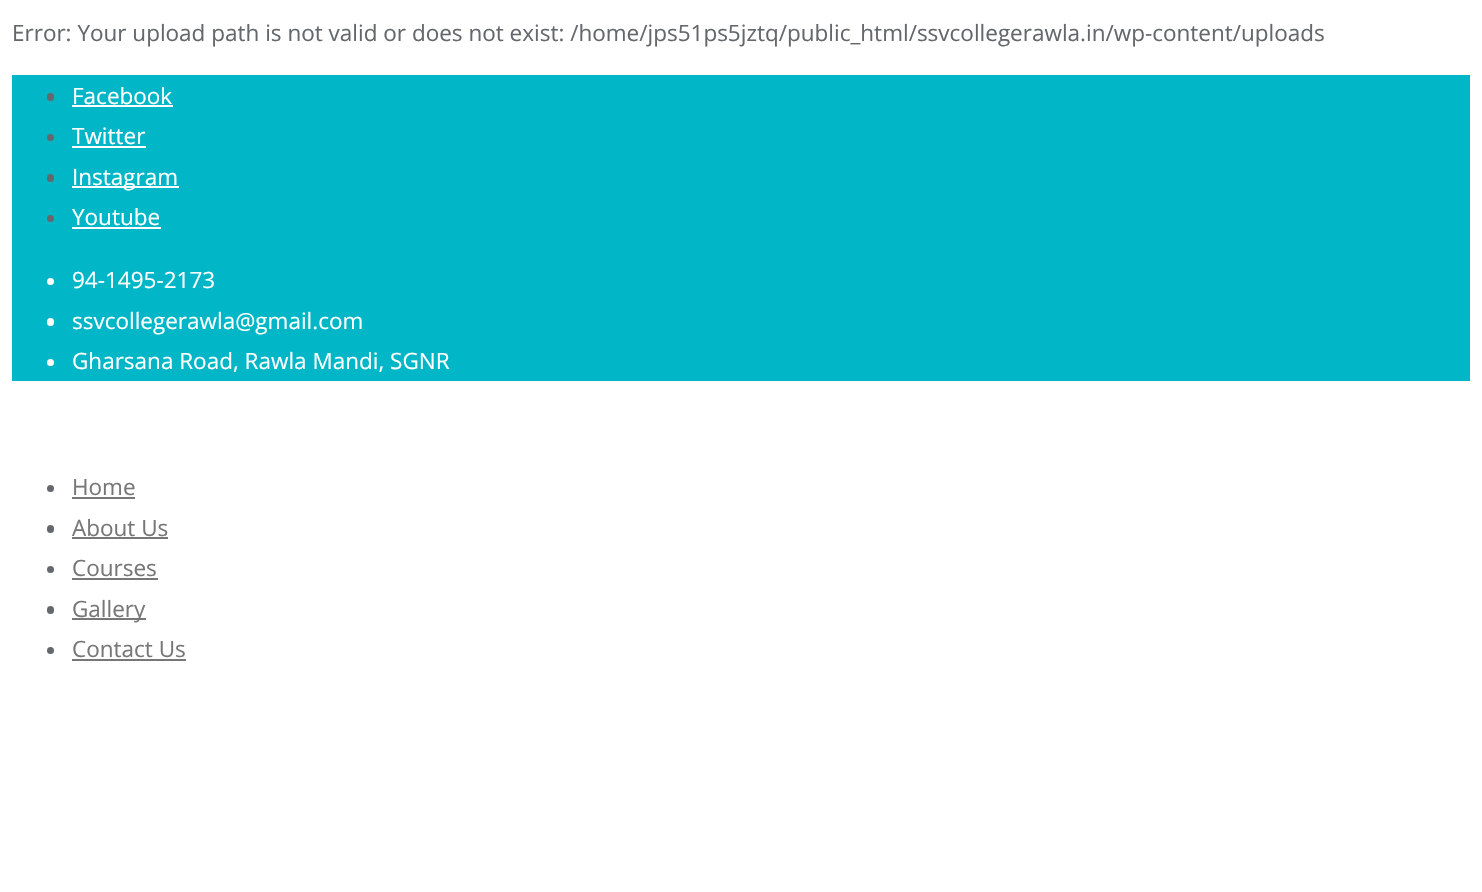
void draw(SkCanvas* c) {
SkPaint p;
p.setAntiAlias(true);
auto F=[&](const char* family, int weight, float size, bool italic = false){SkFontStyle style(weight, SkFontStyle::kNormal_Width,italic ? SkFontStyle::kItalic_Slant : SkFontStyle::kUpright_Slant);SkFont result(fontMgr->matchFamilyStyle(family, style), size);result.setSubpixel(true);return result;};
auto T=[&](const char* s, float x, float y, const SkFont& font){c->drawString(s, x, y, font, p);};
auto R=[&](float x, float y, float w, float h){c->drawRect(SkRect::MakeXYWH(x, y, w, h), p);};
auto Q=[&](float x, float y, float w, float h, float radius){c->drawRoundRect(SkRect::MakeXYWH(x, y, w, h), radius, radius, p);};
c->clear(0xffffffff);
auto f1 = F("Open Sans",400,22.5);
p.setColor(0xff64686d);
T("Error: Your upload path is not valid or does not exist: /home/jps51ps5jztq/public_html/ssvcollegerawla.in/wp-content/uploads",12,41,f1);
p.setColor(0xff00b6c7);
R(12,75,1458,306);
p.setColor(0xff64686d);
Q(47,93,7,8,3.5);
p.setColor(0xffffffff);
T("Facebook",72,104,f1);
R(72,105,101,2);
p.setColor(0xff64686d);
c->drawCircle(50.5,137.5,3.5,p);
p.setColor(0xffffffff);
T("Twitter",72,144,f1);
R(72,146,74,2);
p.setColor(0xff64686d);
Q(47,174,7,8,3.5);
p.setColor(0xffffffff);
R(72,186,107,2);
T("Instagram",72,185,f1);
p.setColor(0xff64686d);
c->drawCircle(50.5,218.5,3.5,p);
p.setColor(0xffffffff);
T("Youtube",72,225,f1);
R(72,227,89,2);
c->drawCircle(50.5,281.5,3.5,p);
T("94-1495-2173",72,288,f1);
Q(47,318,7,8,3.5);
T("ssvcollegerawla@gmail.com",72,329,f1);
c->drawCircle(50.5,362.5,3.5,p);
T("Gharsana Road, Rawla Mandi, SGNR",72,369,f1);
p.setColor(0xff64686d);
c->drawCircle(50.5,488.5,3.5,p);
p.setColor(0xff777777);
T("Home",72,495,f1);
R(72,497,63,2);
p.setColor(0xff64686d);
Q(47,525,7,8,3.5);
p.setColor(0xff777777);
T("About Us",72,536,f1);
R(72,537,96,2);
p.setColor(0xff64686d);
c->drawCircle(50.5,569.5,3.5,p);
p.setColor(0xff777777);
T("Courses",72,576,f1);
R(72,578,86,2);
p.setColor(0xff64686d);
Q(47,606,7,8,3.5);
p.setColor(0xff777777);
R(72,618,74,2);
T("Gallery",72,617,f1);
p.setColor(0xff64686d);
c->drawCircle(50.5,650.5,3.5,p);
p.setColor(0xff777777);
T("Contact Us",72,657,f1);
R(72,659,114,2);
}
